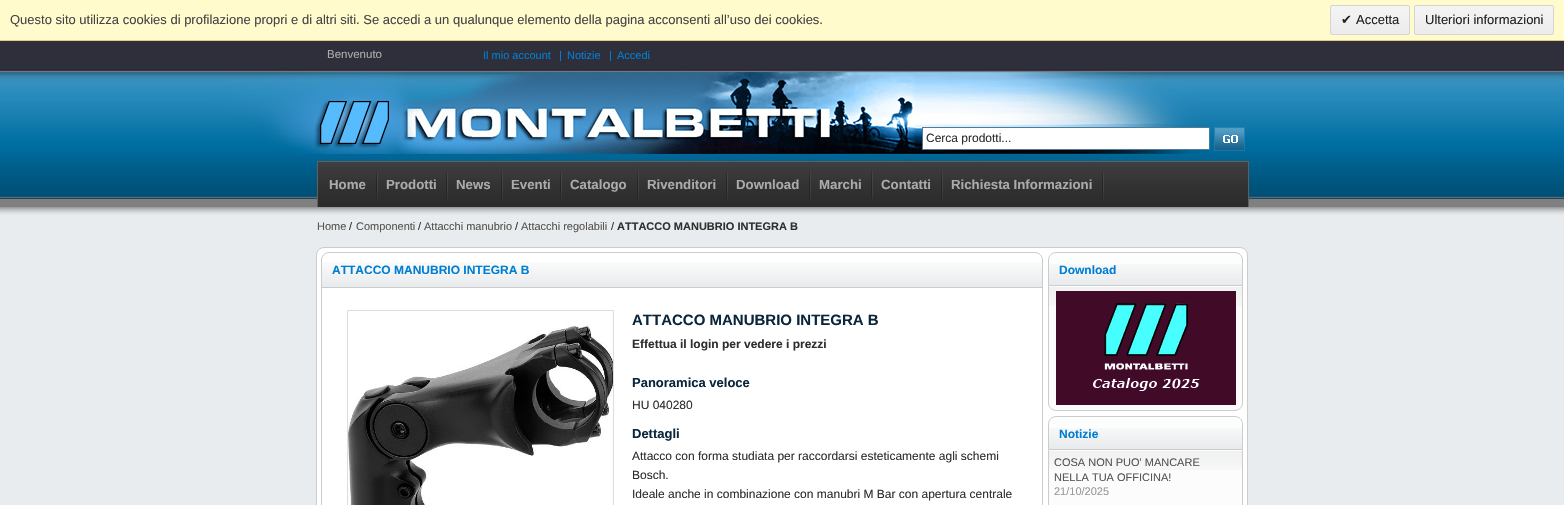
void draw(SkCanvas* c) {
SkPaint p;
p.setAntiAlias(true);
auto F=[&](const char* family, int weight, float size, bool italic = false){SkFontStyle style(weight, SkFontStyle::kNormal_Width,italic ? SkFontStyle::kItalic_Slant : SkFontStyle::kUpright_Slant);SkFont result(fontMgr->matchFamilyStyle(family, style), size);result.setSubpixel(true);return result;};
auto T=[&](const char* s, float x, float y, const SkFont& font){c->drawString(s, x, y, font, p);};
auto R=[&](float x, float y, float w, float h){c->drawRect(SkRect::MakeXYWH(x, y, w, h), p);};
auto I=[&](const char* path, float x, float y, float w, float h){auto image = SkImages::DeferredFromEncodedData(SkData::MakeFromFileName(path));c->drawImageRect(image, SkRect::MakeXYWH(x, y, w, h), SkSamplingOptions());};
auto P=[&](const char* data, bool evenOdd = false){SkPath result = *SkParsePath::FromSVGString(data);if (evenOdd) result.setFillType(SkPathFillType::kEvenOdd);return result;};
c->clear(0xff808080);
p.setColor(0xfffffbcd);
R(0,0,1564,40);
p.setColor(0xffe2cd7b);
R(0,40,1564,1);
auto f1 = F("Liberation Sans",400,13);
p.setColor(0xff444444);
T("Questo sito utilizza cookies di profilazione propri e di altri siti. Se accedi a un qualunque elemento della pagina acconsenti all’uso dei cookies.",10,24,f1);
c->save();
c->clipPath(P("M1332 5h76c1 0 2 1 2 2v26c0 1-1 2-2 2h-76c-1 0-2-1-2-2v-26c0-1 1-2 2-2z"),true);
{
const SkColor colors[] = {0xfff4f4f4,0xffececec};
const float stops[] = {0,1};
const SkPoint ends[] = {{1370,6}, {1370,34}};
p.setShader(SkGradientShader::MakeLinear(ends, colors, stops, 2, SkTileMode::kClamp));
p.setAlpha(255);
}
R(1330,6,80,28);
c->restore();
p.setStroke(true);
p.setStrokeWidth(1);
p.setShader(nullptr);
p.setColor(0xffd4d4d4);
c->drawRoundRect(SkRect::MakeXYWH(1330.5,5.5,79,29),1.5,1.5,p);
auto f2 = F("DejaVu Sans",400,13);
p.setStroke(false);
p.setColor(0xff222222);
T("✔",1341,24,f2);
T("Accetta",1356,24,f1);
c->save();
c->clipPath(P("M1416 5h136c1 0 2 1 2 2v26c0 1-1 2-2 2h-136c-1 0-2-1-2-2v-26c0-1 1-2 2-2z"),true);
{
const SkColor colors[] = {0xfff4f4f4,0xffececec};
const float stops[] = {0,1};
const SkPoint ends[] = {{1484,6}, {1484,34}};
p.setShader(SkGradientShader::MakeLinear(ends, colors, stops, 2, SkTileMode::kClamp));
p.setAlpha(255);
}
R(1414,6,140,28);
c->restore();
p.setStroke(true);
p.setShader(nullptr);
p.setColor(0xffd4d4d4);
c->drawRoundRect(SkRect::MakeXYWH(1414.5,5.5,139,29),1.5,1.5,p);
p.setStroke(false);
p.setColor(0xff222222);
T("Ulteriori informazioni",1425,24,f1);
I("1.png",0,41,1564,158);
auto f3 = F("Liberation Sans",400,11.5);
p.setColor(0xffaaaaaa);
T("Benvenuto",327,58,f3);
auto f4 = F("Liberation Sans",400,11);
p.setColor(0xff007ed3);
T("Il mio account",483,59,f4);
R(560,51,1,10);
T("Notizie",567,59,f4);
R(610,51,1,10);
T("Accedi",617,59,f4);
p.setColor(0xffffffff);
c->drawRect(SkRect::MakeXYWH(922.5,127.5,287,22),p);
p.setStroke(true);
p.setColor(0xff517b92);
c->drawRect(SkRect::MakeXYWH(922.5,127.5,287,22),p);
auto f5 = F("Liberation Sans",400,12);
p.setStroke(false);
p.setColor(0xff2f2f2f);
T("Cerca prodotti...",926,142,f5);
I("2.png",1214,127,31,24);
I("3.png",318,162,930,45);
p.setColor(0xff606060);
R(317,161,932,1);
R(1248,161,1,46);
R(317,161,1,46);
I("4.png",376,170,2,30);
auto f6 = F("Liberation Sans",700,13.25);
p.setColor(0xffaaaaaa);
T("Home",329,189,f6);
I("4.png",446,170,2,30);
T("Prodotti",386,189,f6);
I("4.png",501,170,2,30);
T("News",456,189,f6);
I("4.png",560,170,2,30);
T("Eventi",511,189,f6);
I("4.png",637,170,2,30);
T("Catalogo",570,189,f6);
I("4.png",726,170,2,30);
T("Rivenditori",647,189,f6);
I("4.png",809,170,2,30);
T("Download",736,189,f6);
I("4.png",871,170,2,30);
T("Marchi",819,189,f6);
I("4.png",941,170,2,30);
T("Contatti",881,189,f6);
I("4.png",1102,170,2,30);
T("Richiesta Informazioni",951,189,f6);
p.setColor(0xffe9ecee);
R(0,215,1564,290);
I("5.png",0,207,1564,8);
p.setColor(0xff555452);
T("Home",317,230,f4);
p.setColor(0xff2f2f2f);
T("/",349,230,f4);
p.setColor(0xff555452);
T("Componenti",356,230,f4);
p.setColor(0xff2f2f2f);
T("/",418,230,f4);
p.setColor(0xff555452);
T("Attacchi manubrio",424,230,f4);
p.setColor(0xff2f2f2f);
T("/",515,230,f4);
p.setColor(0xff555452);
T("Attacchi regolabili",521,230,f4);
p.setColor(0xff2f2f2f);
T("/",611,230,f4);
auto f7 = F("Liberation Sans",700,11);
T("ATTACCO MANUBRIO INTEGRA B",617,230,f7);
p.setColor(0xffffffff);
c->drawRoundRect(SkRect::MakeXYWH(316.5,247.5,931,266),7.5,7.5,p);
p.setStroke(true);
p.setColor(0xffcccccc);
c->drawRoundRect(SkRect::MakeXYWH(316.5,247.5,931,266),7.5,7.5,p);
c->drawRoundRect(SkRect::MakeXYWH(321.5,252.5,721,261),7.5,7.5,p);
I("6.png",322,262,720,25);
p.setStroke(false);
R(322,287,720,1);
auto f8 = F("Liberation Sans",700,12);
p.setColor(0xff007ed3);
T("ATTACCO MANUBRIO INTEGRA B",332,274,f8);
p.setStroke(true);
p.setColor(0xffdddddd);
c->drawRect(SkRect::MakeXYWH(347.5,310.5,266,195),p);
I("7.png",348,324,265,181);
auto f9 = F("Liberation Sans",700,15);
p.setStroke(false);
p.setColor(0xff0a263c);
T("ATTACCO MANUBRIO INTEGRA B",632,325,f9);
p.setColor(0xff2f2f2f);
T("Effettua il login per vedere i prezzi",632,348,f8);
auto f10 = F("Liberation Sans",700,13);
p.setColor(0xff0a263c);
T("Panoramica veloce",632,387,f10);
p.setColor(0xff2f2f2f);
T("HU 040280",632,409,f5);
p.setColor(0xff0a263c);
T("Dettagli",632,438,f10);
p.setColor(0xff2f2f2f);
T("Attacco con forma studiata per raccordarsi esteticamente agli schemi",632,460,f5);
T("Bosch.",632,479,f5);
T("Ideale anche in combinazione con manubri M Bar con apertura centrale",632,498,f5);
p.setColor(0xfffcfdfd);
c->drawPath(P("M1056 252h179c4.5 0 8 3.5 8 8v26h-195v-26c0-4.5 3.5-8 8-8z"),p);
I("8.png",1049,264,193,21);
p.setStroke(true);
p.setColor(0xffcccccc);
c->drawPath(P("M1056 252.5h179c4 0 7.5 3.5 7.5 7.5v25.5h-194v-25.5c0-4 3.5-7.5 7.5-7.5z"),p);
p.setStroke(false);
p.setColor(0xff007ed3);
T("Download",1059,274,f8);
p.setColor(0xfffcfcfc);
c->drawPath(P("M1048 286h195v117c0 4.5-3.5 8-8 8h-179c-4.5 0-8-3.5-8-8z"),p);
I("9.png",1049,287,193,19);
p.setColor(0xffcccccc);
c->drawPath(P("M1048 286h195v117c0 4-4 8-8 8h-179c-4 0-8-4-8-8zm1 0h193v117c0 4-3 7-7 7h-179c-4 0-7-3-7-7z",true),p);
I("10.png",1056,291,180,114);
p.setColor(0xfffcfdfd);
c->drawPath(P("M1056 416h179c4.5 0 8 3.5 8 8v26h-195v-26c0-4.5 3.5-8 8-8z"),p);
I("8.png",1049,428,193,21);
p.setStroke(true);
p.setColor(0xffcccccc);
c->drawPath(P("M1056 416.5h179c4 0 7.5 3.5 7.5 7.5v25.5h-194v-25.5c0-4 3.5-7.5 7.5-7.5z"),p);
p.setStroke(false);
p.setColor(0xff007ed3);
T("Notizie",1059,438,f8);
p.setColor(0xfffcfcfc);
R(1049,450,193,55);
I("9.png",1049,451,193,19);
p.setColor(0xffcccccc);
c->drawPath(P("M1048 450h195v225c0 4-4 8-8 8h-179c-4 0-8-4-8-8zm1 0h193v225c0 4-3 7-7 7h-179c-4 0-7-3-7-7z",true),p);
p.setColor(0xff555452);
T("COSA NON PUO' MANCARE",1054,466,f4);
T("NELLA TUA OFFICINA!",1054,481,f4);
p.setColor(0xff999999);
T("21/10/2025",1054,495,f4);
}
